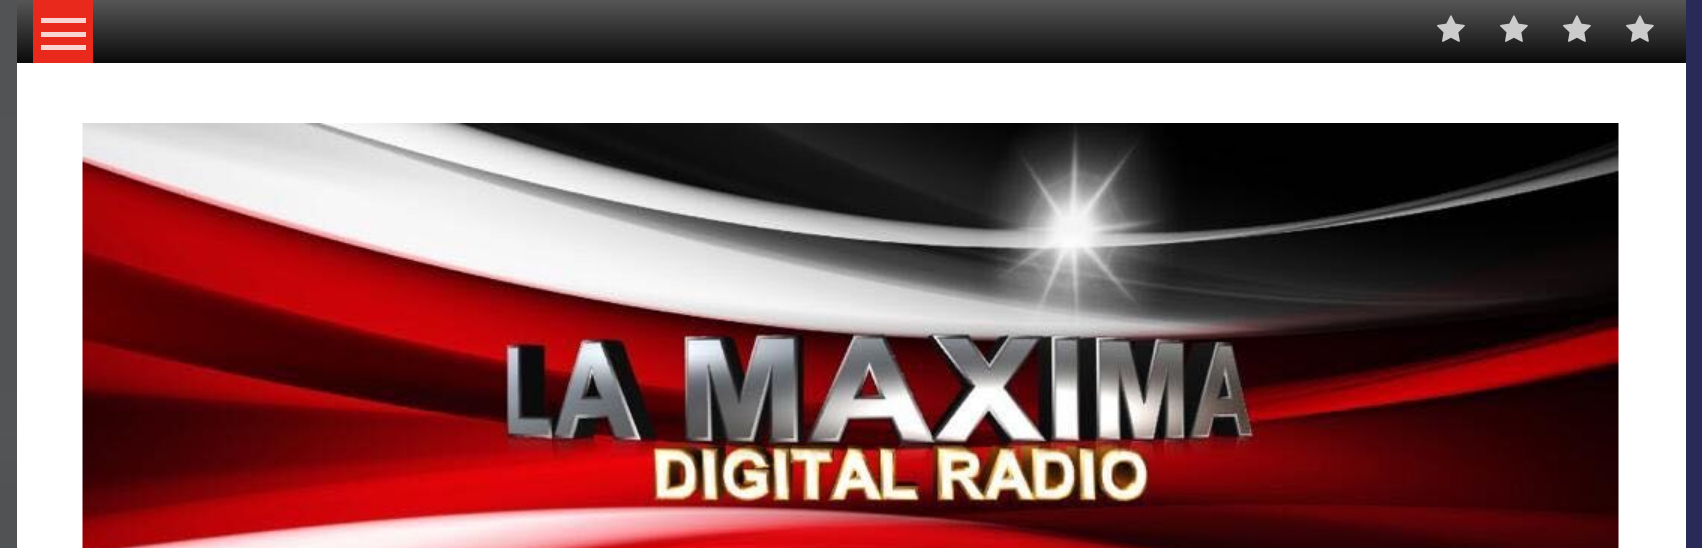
void draw(SkCanvas* c) {
SkPaint p;
p.setAntiAlias(true);
auto R=[&](float x, float y, float w, float h){c->drawRect(SkRect::MakeXYWH(x, y, w, h), p);};
auto I=[&](const char* path, float x, float y, float w, float h){auto image = SkImages::DeferredFromEncodedData(SkData::MakeFromFileName(path));c->drawImageRect(image, SkRect::MakeXYWH(x, y, w, h), SkSamplingOptions());};
c->clear(0xff2a2a59);
I("1.png",0,0,17,548);
p.setColor(0xffffffff);
R(17,63,1669,485);
{
const SkColor colors[] = {0xff565656,0xff0a0a0a};
const float stops[] = {0,1};
const SkPoint ends[] = {{851,0}, {851,63}};
p.setShader(SkGradientShader::MakeLinear(ends, colors, stops, 2, SkTileMode::kClamp));
p.setAlpha(255);
}
R(17,0,1669,63);
p.setShader(nullptr);
p.setColor(0xffe8291b);
R(33,0,60,63);
p.setColor(0xfffad4d1);
R(41,18,45,5);
R(41,32,45,5);
R(41,45,45,5);
I("2.png",1437,15,28,27);
I("2.png",1500,15,28,27);
I("2.png",1563,15,28,27);
I("2.png",1626,15,28,27);
I("3.png",82,123,1537,425);
}
